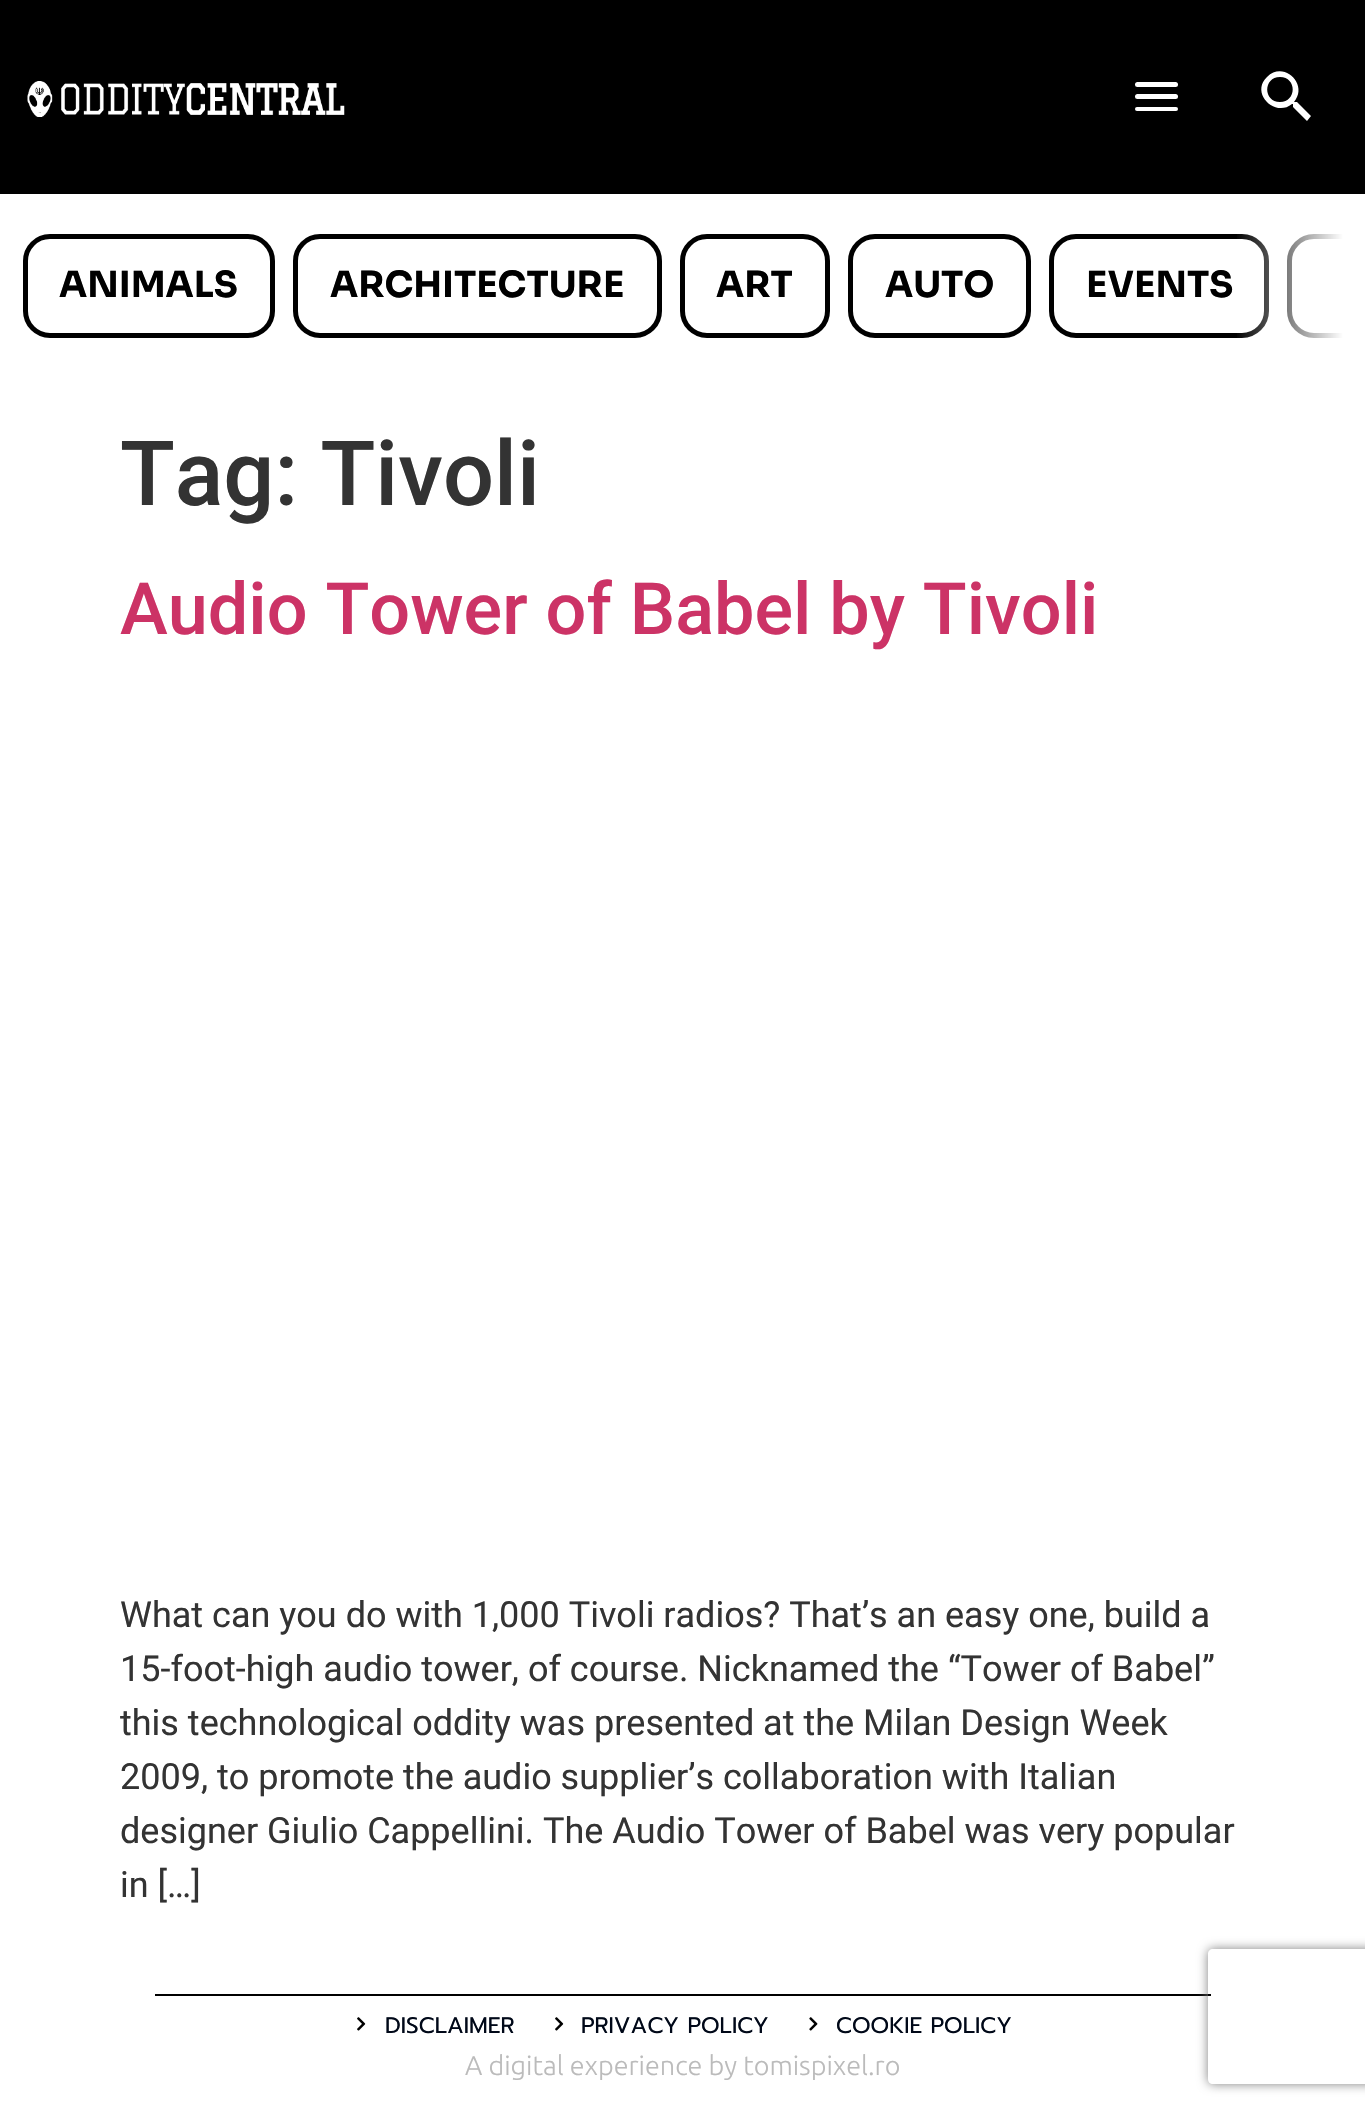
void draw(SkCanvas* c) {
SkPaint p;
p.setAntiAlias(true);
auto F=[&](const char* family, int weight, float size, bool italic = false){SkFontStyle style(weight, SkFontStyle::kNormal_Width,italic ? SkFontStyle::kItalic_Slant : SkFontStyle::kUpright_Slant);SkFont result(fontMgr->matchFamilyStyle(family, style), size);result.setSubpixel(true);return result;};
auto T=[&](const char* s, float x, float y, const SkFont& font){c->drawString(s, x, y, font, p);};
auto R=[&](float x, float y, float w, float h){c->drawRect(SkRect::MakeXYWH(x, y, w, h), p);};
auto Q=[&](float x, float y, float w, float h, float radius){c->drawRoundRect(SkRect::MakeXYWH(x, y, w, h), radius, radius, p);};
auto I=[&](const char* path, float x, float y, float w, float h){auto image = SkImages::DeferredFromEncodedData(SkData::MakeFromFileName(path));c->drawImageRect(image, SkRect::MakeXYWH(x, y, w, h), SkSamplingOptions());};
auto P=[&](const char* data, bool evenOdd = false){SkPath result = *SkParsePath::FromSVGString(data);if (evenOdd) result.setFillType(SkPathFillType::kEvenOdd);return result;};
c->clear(0xffffffff);
p.setColor(0xff000000);
R(0,0,1365,194);
I("1.png",27,81,318,36);
p.setColor(0xffffffff);
Q(1135,82,43,5,2.5);
Q(1135,94,43,5,2.5);
Q(1135,107,43,4,2);
c->drawPath(P("M1297 102h-2h-1c15-17-10-42-27-25c-17 16 8 41 25 27h1v3l14 14l4-5zm-17 0c-17 0-17-25 0-25c17 0 17 25 0 25z"),p);
p.setStroke(true);
p.setStrokeWidth(5);
p.setColor(0xff000000);
c->drawRoundRect(SkRect::MakeXYWH(25.5,236.5,247,99),24.5,24.5,p);
auto f1 = F("Sora",700,36);
p.setStroke(false);
T("ANIMALS",59,297,f1);
p.setStroke(true);
c->drawRoundRect(SkRect::MakeXYWH(295.5,236.5,364,99),24.5,24.5,p);
p.setStroke(false);
T("ARCHITECTURE",330,297,f1);
p.setStroke(true);
c->drawRoundRect(SkRect::MakeXYWH(682.5,236.5,145,99),24.5,24.5,p);
p.setStroke(false);
T("ART",716,297,f1);
p.setStroke(true);
c->drawRoundRect(SkRect::MakeXYWH(850.5,236.5,178,99),24.5,24.5,p);
p.setStroke(false);
T("AUTO",885,297,f1);
p.setStroke(true);
c->drawRoundRect(SkRect::MakeXYWH(1051.5,236.5,215,99),24.5,24.5,p);
p.setStroke(false);
T("EVENTS",1086,297,f1);
c->save();
c->clipRect(SkRect::MakeXYWH(23,225,1320,122));
p.setStroke(true);
c->drawRoundRect(SkRect::MakeXYWH(1289.5,236.5,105,99),24.5,24.5,p);
c->restore();
p.setStroke(false);
{
const SkColor colors[] = {0xffffffff,0x00ffffff};
const float stops[] = {0,1};
const SkPoint ends[] = {{1343,285}, {1235,285}};
p.setShader(SkGradientShader::MakeLinear(ends, colors, stops, 2, SkTileMode::kClamp));
p.setAlpha(255);
}
R(1237,234,106,104);
auto f2 = F("Roboto",500,90);
p.setShader(nullptr);
p.setColor(0xff333333);
T("Tag: Tivoli",120,505,f2);
auto f3 = F("Roboto",500,72);
p.setColor(0xffcc3366);
T("Audio Tower of Babel by Tivoli",120,634,f3);
auto f4 = F("Roboto",400,36);
p.setColor(0xff333333);
T("What can you do with 1,000 Tivoli radios? That’s an easy one, build a",120,1627,f4);
T("15-foot-high audio tower, of course. Nicknamed the “Tower of Babel”",120,1681,f4);
T("this technological oddity was presented at the Milan Design Week",120,1735,f4);
T("2009, to promote the audio supplier’s collaboration with Italian",120,1789,f4);
T("designer Giulio Cappellini. The Audio Tower of Babel was very popular",120,1843,f4);
T("in […]",120,1897,f4);
p.setColor(0xff000000);
R(155,1994,1056,2);
I("2.png",357,2017,9,14);
auto f5 = F("Prompt",400,22.5);
p.setColor(0xff000818);
T("DISCLAIMER",385,2033,f5);
I("2.png",555,2017,9,14);
T("PRIVACY POLICY",581,2033,f5);
I("3.png",809,2017,9,14);
T("COOKIE POLICY",836,2033,f5);
auto f6 = F("Ubuntu",300,27);
p.setColor(0xffbbbbbb);
T("A digital experience by tomispixel.ro",465,2075,f6);
c->save();
c->clipPath(P("M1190 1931h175v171h-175zm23 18h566c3 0 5 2 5 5v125c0 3-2 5-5 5h-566c-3 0-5-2-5-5v-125c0-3 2-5 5-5z",true),true);
p.setColor(0xff808080);
p.setMaskFilter(SkMaskFilter::MakeBlur(kNormal_SkBlurStyle, 5.5));
c->drawRoundRect(SkRect::MakeXYWH(1208,1949,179,135),5,5,p);
p.setMaskFilter(nullptr);
c->restore();
}
